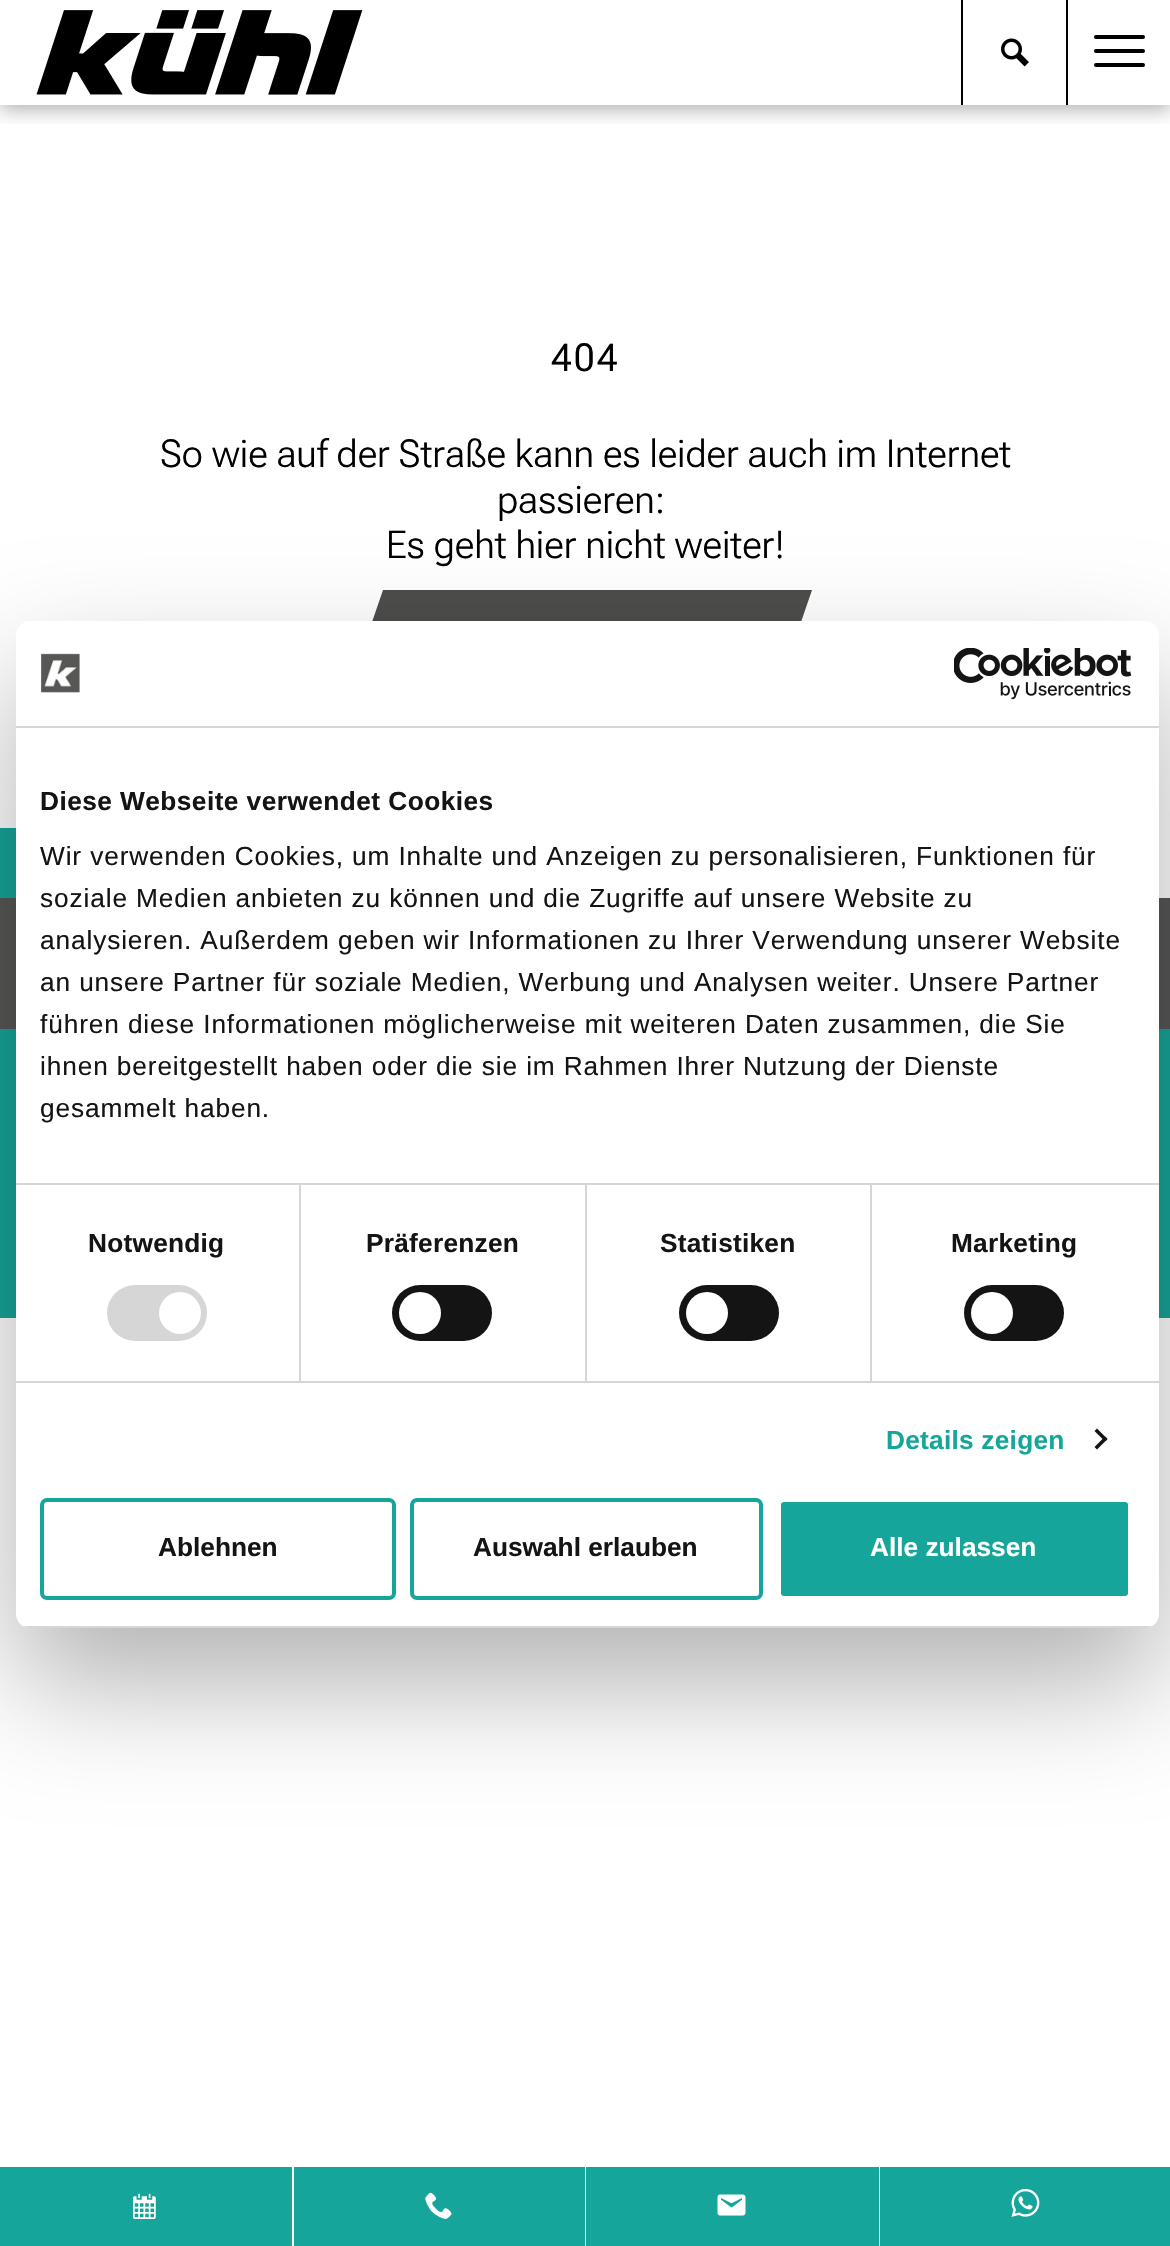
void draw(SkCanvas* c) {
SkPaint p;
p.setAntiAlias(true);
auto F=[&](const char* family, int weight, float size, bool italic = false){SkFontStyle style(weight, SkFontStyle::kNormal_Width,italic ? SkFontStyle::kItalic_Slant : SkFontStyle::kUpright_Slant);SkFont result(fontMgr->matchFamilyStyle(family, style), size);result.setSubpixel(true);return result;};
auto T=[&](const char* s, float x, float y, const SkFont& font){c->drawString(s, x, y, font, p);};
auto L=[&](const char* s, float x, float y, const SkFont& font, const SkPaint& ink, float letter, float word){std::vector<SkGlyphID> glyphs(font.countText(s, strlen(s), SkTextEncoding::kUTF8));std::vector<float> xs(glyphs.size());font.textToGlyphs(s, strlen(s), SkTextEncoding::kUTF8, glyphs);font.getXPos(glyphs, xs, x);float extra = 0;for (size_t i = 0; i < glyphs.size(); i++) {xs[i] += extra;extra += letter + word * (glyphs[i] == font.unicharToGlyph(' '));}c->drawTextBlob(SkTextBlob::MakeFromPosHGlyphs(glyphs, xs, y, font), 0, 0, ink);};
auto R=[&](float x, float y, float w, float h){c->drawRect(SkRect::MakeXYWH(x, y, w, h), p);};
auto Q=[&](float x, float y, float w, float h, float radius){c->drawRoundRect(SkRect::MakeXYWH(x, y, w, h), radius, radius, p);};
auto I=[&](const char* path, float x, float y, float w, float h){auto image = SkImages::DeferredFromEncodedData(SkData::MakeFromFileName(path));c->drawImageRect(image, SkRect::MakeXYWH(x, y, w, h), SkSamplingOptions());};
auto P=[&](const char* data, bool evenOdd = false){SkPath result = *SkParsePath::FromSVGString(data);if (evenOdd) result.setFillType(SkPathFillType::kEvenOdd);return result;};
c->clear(0xffffffff);
c->save();
c->clipRect(SkRect::MakeXYWH(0,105,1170,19));
p.setColor(0x4d000000);
p.setMaskFilter(SkMaskFilter::MakeBlur(kNormal_SkBlurStyle, 9));
c->drawRect(SkRect::MakeXYWH(0,5,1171,105),p);
p.setMaskFilter(nullptr);
c->restore();
I("1.png",36,10,327,85);
p.setColor(0xff000000);
R(961,0,2,105);
I("2.png",1001,38,28,29);
R(1066,0,2,105);
Q(1094,35,51,4,2);
Q(1094,49,51,4,2);
Q(1094,63,51,4,2);
auto f1 = F("Roboto Flex",400,38.5);
L("404",551,371,f1,p,2,0);
auto f2 = F("Roboto Flex",300,38.5);
T("So wie auf der Straße kann es leider auch im Internet",160,467,f2);
T("passieren:",497,513,f2);
T("Es geht hier nicht weiter!",386,558,f2);
p.setColor(0xff4d4d4c);
c->drawPath(P("M383 590h429l-24 70h-429z"),p);
p.setColor(0xff16a59a);
R(0,828,16,70);
p.setColor(0xff575756);
R(0,898,1170,131);
p.setColor(0xff16a59a);
R(0,1029,1170,289);
p.setColor(0x4d000000);
p.setMaskFilter(SkMaskFilter::MakeBlur(kNormal_SkBlurStyle, 59.5));
c->drawRoundRect(SkRect::MakeXYWH(16,677,1143,1007),14,14,p);
p.setMaskFilter(nullptr);
p.setColor(0xffffffff);
Q(16,621,1143,1007,14);
p.setColor(0xffd6d6d6);
R(16,726,1143,2);
I("3.png",41,653,39,40);
I("4.png",954,648,178,52);
R(16,1183,1143,2);
auto f3 = F("Liberation Sans",700,26.25);
p.setColor(0xff141414);
L("Diese Webseite verwendet Cookies",40,810,f3,p,.45,0);
auto f4 = F("Liberation Sans",400,26.25);
L("Wir verwenden Cookies, um Inhalte und Anzeigen zu personalisieren, Funktionen für",40,865,f4,p,.88,0);
L("soziale Medien anbieten zu können und die Zugriffe auf unsere Website zu",40,907,f4,p,.88,0);
L("analysieren. Außerdem geben wir Informationen zu Ihrer Verwendung unserer Website",40,949,f4,p,.88,0);
L("an unsere Partner für soziale Medien, Werbung und Analysen weiter. Unsere Partner",40,991,f4,p,.88,0);
L("führen diese Informationen möglicherweise mit weiteren Daten zusammen, die Sie",40,1033,f4,p,.88,0);
L("ihnen bereitgestellt haben oder die sie im Rahmen Ihrer Nutzung der Dienste",40,1075,f4,p,.88,0);
L("gesammelt haben.",40,1117,f4,p,.88,0);
p.setColor(0xffd6d6d6);
R(16,1381,1143,2);
R(299,1185,2,196);
p.setColor(0xff141414);
L("Notwendig",88,1252,f3,p,.25,0);
p.setColor(0xffd6d6d6);
Q(107,1285,100,56,28);
p.setColor(0xffffffff);
c->drawCircle(180,1313,21,p);
p.setColor(0xffd6d6d6);
R(585,1185,2,196);
p.setColor(0xff141414);
L("Präferenzen",366,1252,f3,p,.25,0);
Q(392,1285,100,56,28);
p.setColor(0xffffffff);
c->drawCircle(420,1313,21,p);
p.setColor(0xffd6d6d6);
R(870,1185,2,196);
p.setColor(0xff141414);
L("Statistiken",660,1252,f3,p,.25,0);
Q(679,1285,100,56,28);
p.setColor(0xffffffff);
c->drawCircle(707,1313,21,p);
p.setColor(0xff141414);
L("Marketing",951,1252,f3,p,.25,0);
Q(964,1285,100,56,28);
p.setColor(0xffffffff);
c->drawCircle(992,1313,21,p);
p.setColor(0xff16a59a);
L("Details zeigen",886,1449,f3,p,.25,0);
p.setColor(0xff141414);
c->drawPath(P("M1097 1428.5l10.5 10.5l-2.5 2.5l-10.5-10.5z"),p);
c->drawPath(P("M1105 1436.5l2.5 2.5l-10.5 10.5l-2.5-2.5z"),p);
c->save();
c->clipPath(P("M30 621h1115c7.5 0 14 6.5 14 14v979c0 7.5-6.5 14-14 14h-1115c-7.5 0-14-6.5-14-14v-979c0-7.5 6.5-14 14-14z"),true);
p.setColor(0xffd6d6d6);
R(16,1626,1143,2);
c->restore();
p.setStroke(true);
p.setStrokeWidth(4);
p.setColor(0xff16a59a);
c->drawRoundRect(SkRect::MakeXYWH(42,1500,352,98),5,5,p);
p.setStroke(false);
p.setColor(0xff141414);
T("Ablehnen",158,1556,f3);
p.setStroke(true);
p.setColor(0xff16a59a);
c->drawRoundRect(SkRect::MakeXYWH(412,1500,349,98),5,5,p);
p.setStroke(false);
p.setColor(0xff141414);
T("Auswahl erlauben",473,1556,f3);
p.setColor(0xff16a59a);
c->drawRoundRect(SkRect::MakeXYWH(779,1500,351,98),5,5,p);
p.setStroke(true);
p.setColor(0xffffffff);
c->drawRoundRect(SkRect::MakeXYWH(779,1500,351,98),5,5,p);
p.setStroke(false);
T("Alle zulassen",870,1556,f3);
p.setColor(0xff16a59a);
R(0,2167,292,79);
I("5.png",133,2193,23,26);
R(294,2167,291,79);
I("6.png",425,2192,27,27);
R(586,2167,293,79);
I("7.png",717,2194,29,22);
R(880,2167,290,79);
I("8.png",1011,2188,29,29);
}
